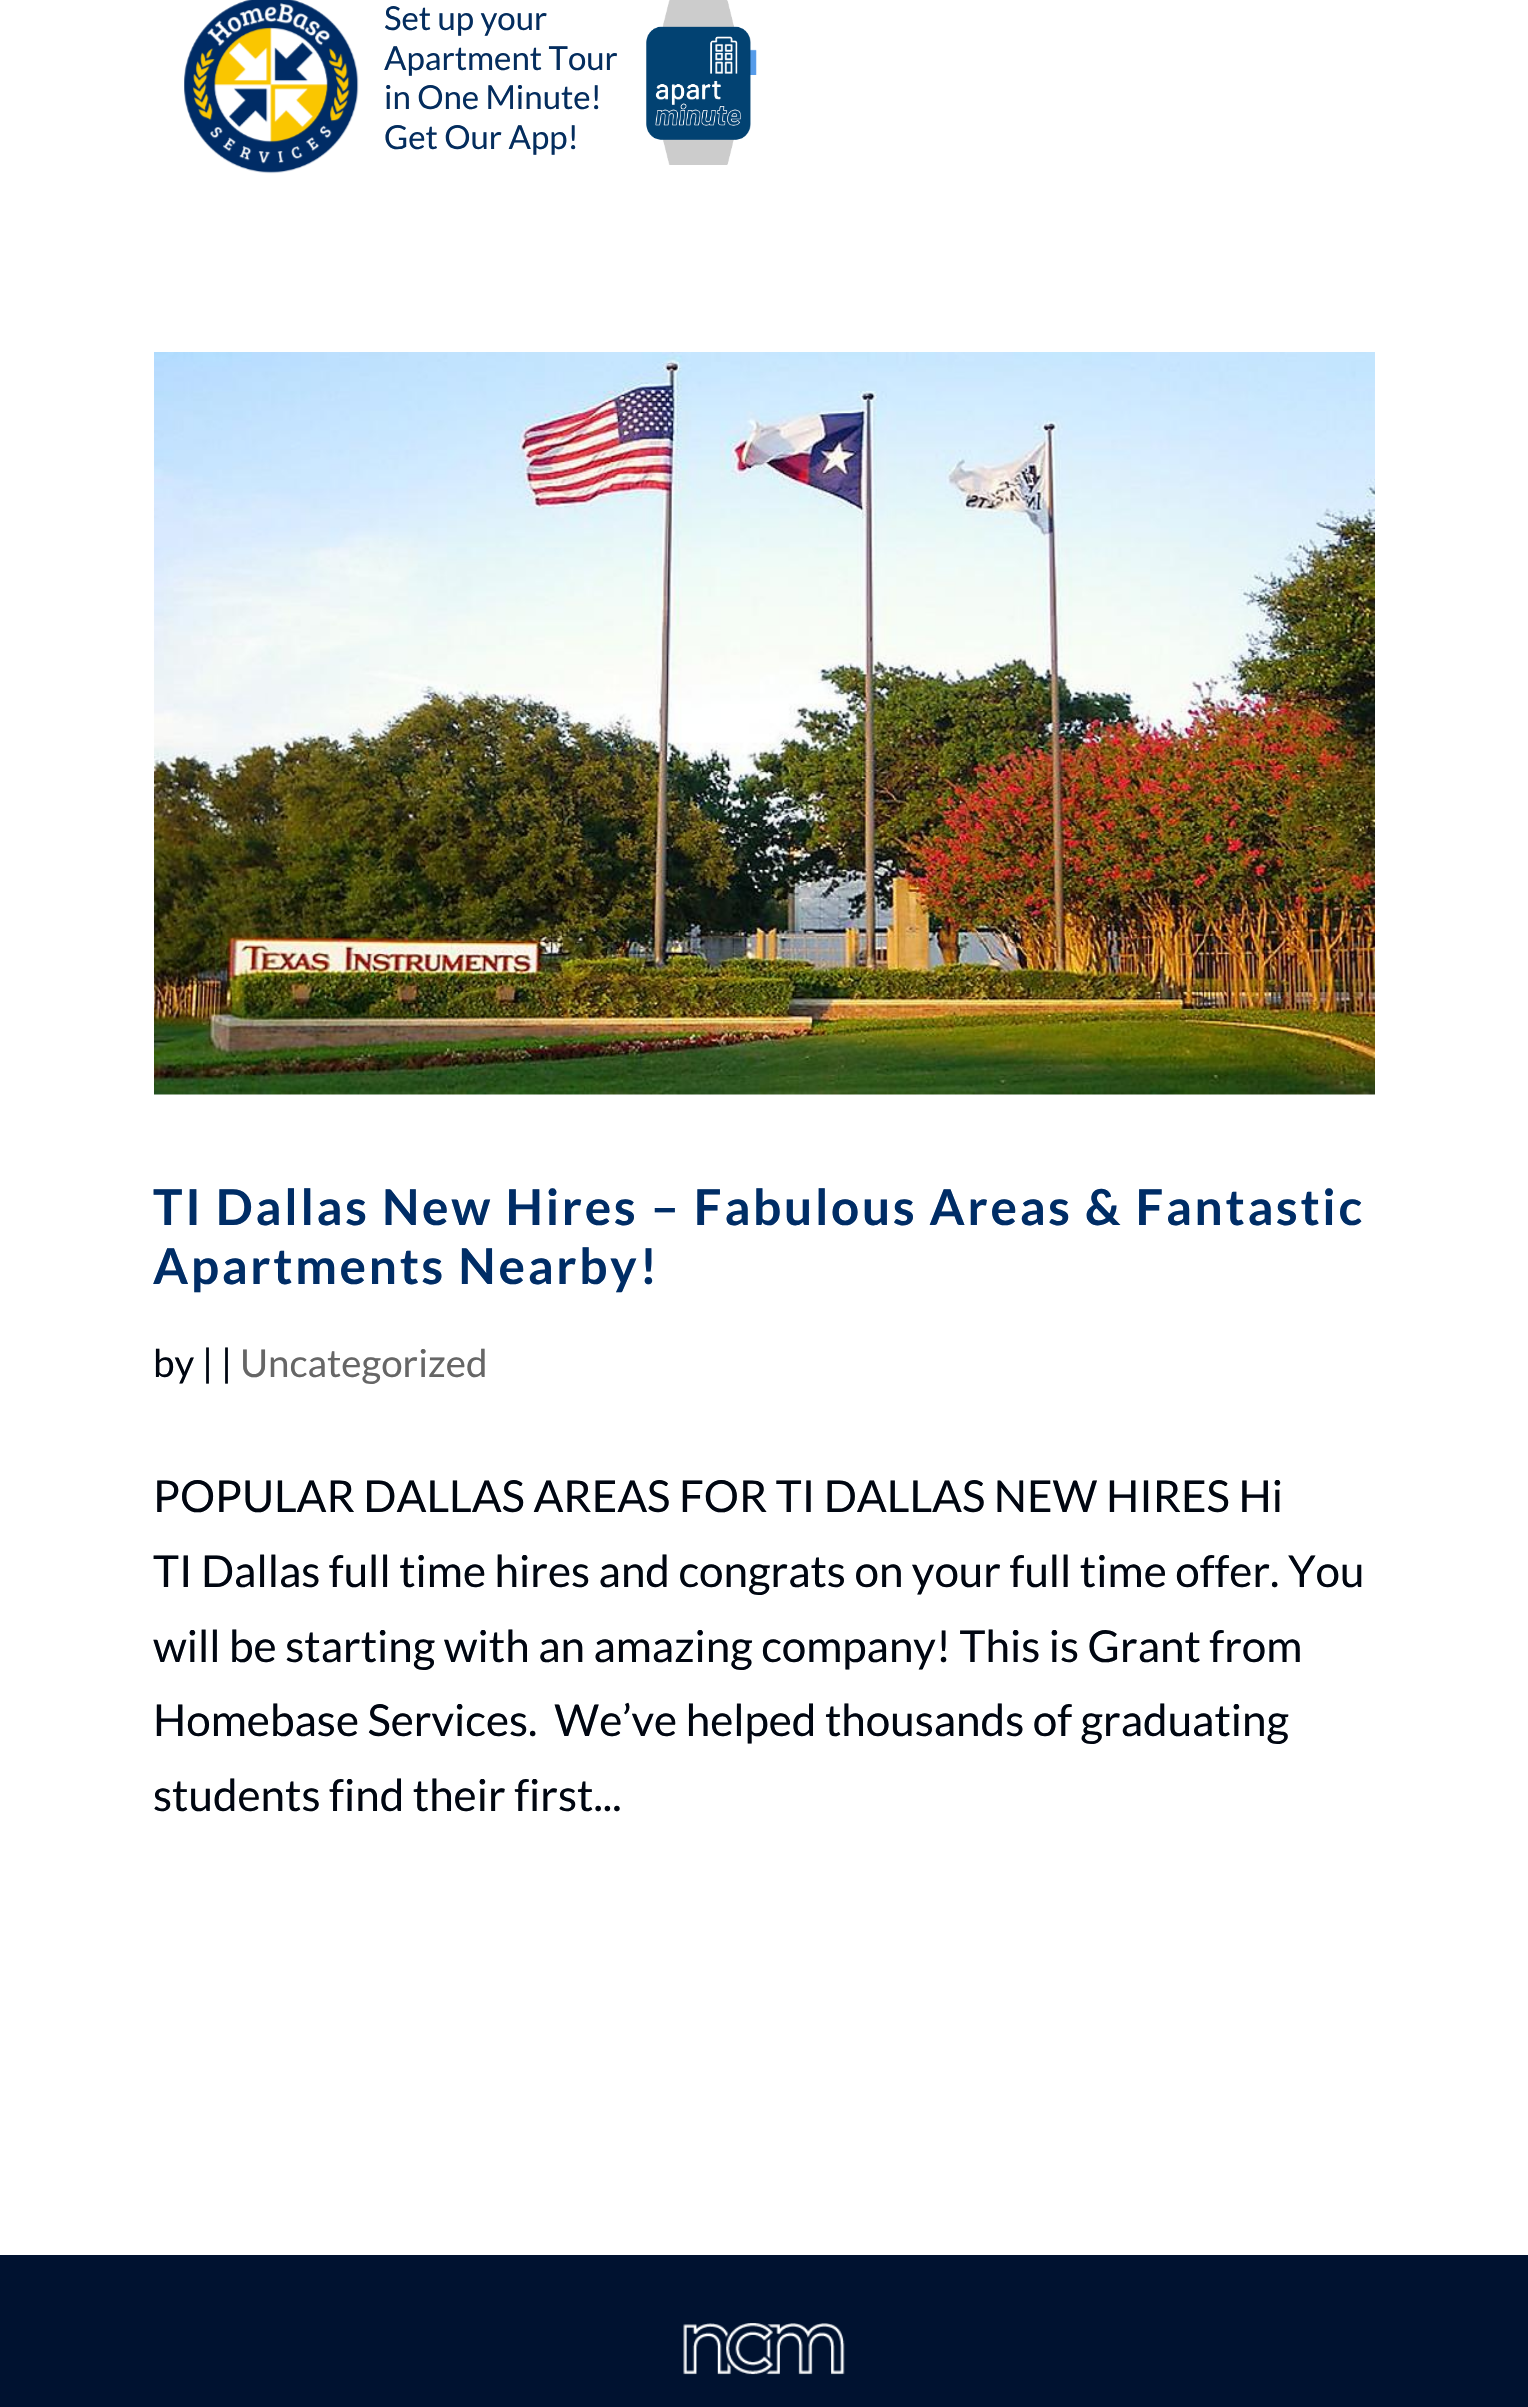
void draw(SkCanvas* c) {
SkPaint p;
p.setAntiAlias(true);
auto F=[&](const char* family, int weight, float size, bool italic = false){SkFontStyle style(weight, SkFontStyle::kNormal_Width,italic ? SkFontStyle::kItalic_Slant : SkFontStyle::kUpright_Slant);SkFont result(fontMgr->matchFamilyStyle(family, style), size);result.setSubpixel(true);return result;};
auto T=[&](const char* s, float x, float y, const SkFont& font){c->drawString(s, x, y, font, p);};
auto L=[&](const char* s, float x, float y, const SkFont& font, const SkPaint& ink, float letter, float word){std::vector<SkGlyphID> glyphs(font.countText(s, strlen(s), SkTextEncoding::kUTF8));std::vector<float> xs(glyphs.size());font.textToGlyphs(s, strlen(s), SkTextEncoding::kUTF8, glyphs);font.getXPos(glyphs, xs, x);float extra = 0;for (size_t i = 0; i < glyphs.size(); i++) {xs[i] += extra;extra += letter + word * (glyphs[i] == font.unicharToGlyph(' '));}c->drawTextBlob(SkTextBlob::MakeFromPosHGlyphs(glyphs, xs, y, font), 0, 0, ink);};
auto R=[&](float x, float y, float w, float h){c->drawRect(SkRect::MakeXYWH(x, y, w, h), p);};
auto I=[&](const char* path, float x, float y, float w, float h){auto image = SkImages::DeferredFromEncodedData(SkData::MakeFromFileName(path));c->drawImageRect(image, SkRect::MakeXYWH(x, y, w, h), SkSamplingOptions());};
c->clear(0xffffffff);
I("1.png",184,0,175,174);
auto f1 = F("Lato",400,33);
p.setColor(0xff042d5e);
T("Set up your",384,30,f1);
T("Apartment Tour",384,70,f1);
T("in One Minute!",384,109,f1);
T("Get Our App!",384,149,f1);
I("2.png",646,0,111,165);
I("3.png",154,352,1221,743);
auto f2 = F("Lato",700,49.5);
p.setColor(0xff002d66);
L("TI Dallas New Hires – Fabulous Areas & Fantastic",153,1225,f2,p,2.75,0);
L("Apartments Nearby!",153,1284,f2,p,2.75,0);
auto f3 = F("Lato",400,38.5);
p.setColor(0xff000611);
T("by | |",153,1377,f3);
p.setColor(0xff666666);
T("Uncategorized",240,1377,f3);
auto f4 = F("Lato",400,44);
p.setColor(0xff000611);
T("POPULAR DALLAS AREAS FOR TI DALLAS NEW HIRES Hi",153,1512,f4);
T("TI Dallas full time hires and congrats on your full time offer. You",153,1587,f4);
T("will be starting with an amazing company! This is Grant from",153,1662,f4);
T("Homebase Services.  We’ve helped thousands of graduating",153,1736,f4);
T("students find their first...",153,1811,f4);
p.setColor(0xff001230);
R(0,2255,1528,152);
I("4.png",683,2323,162,52);
}
